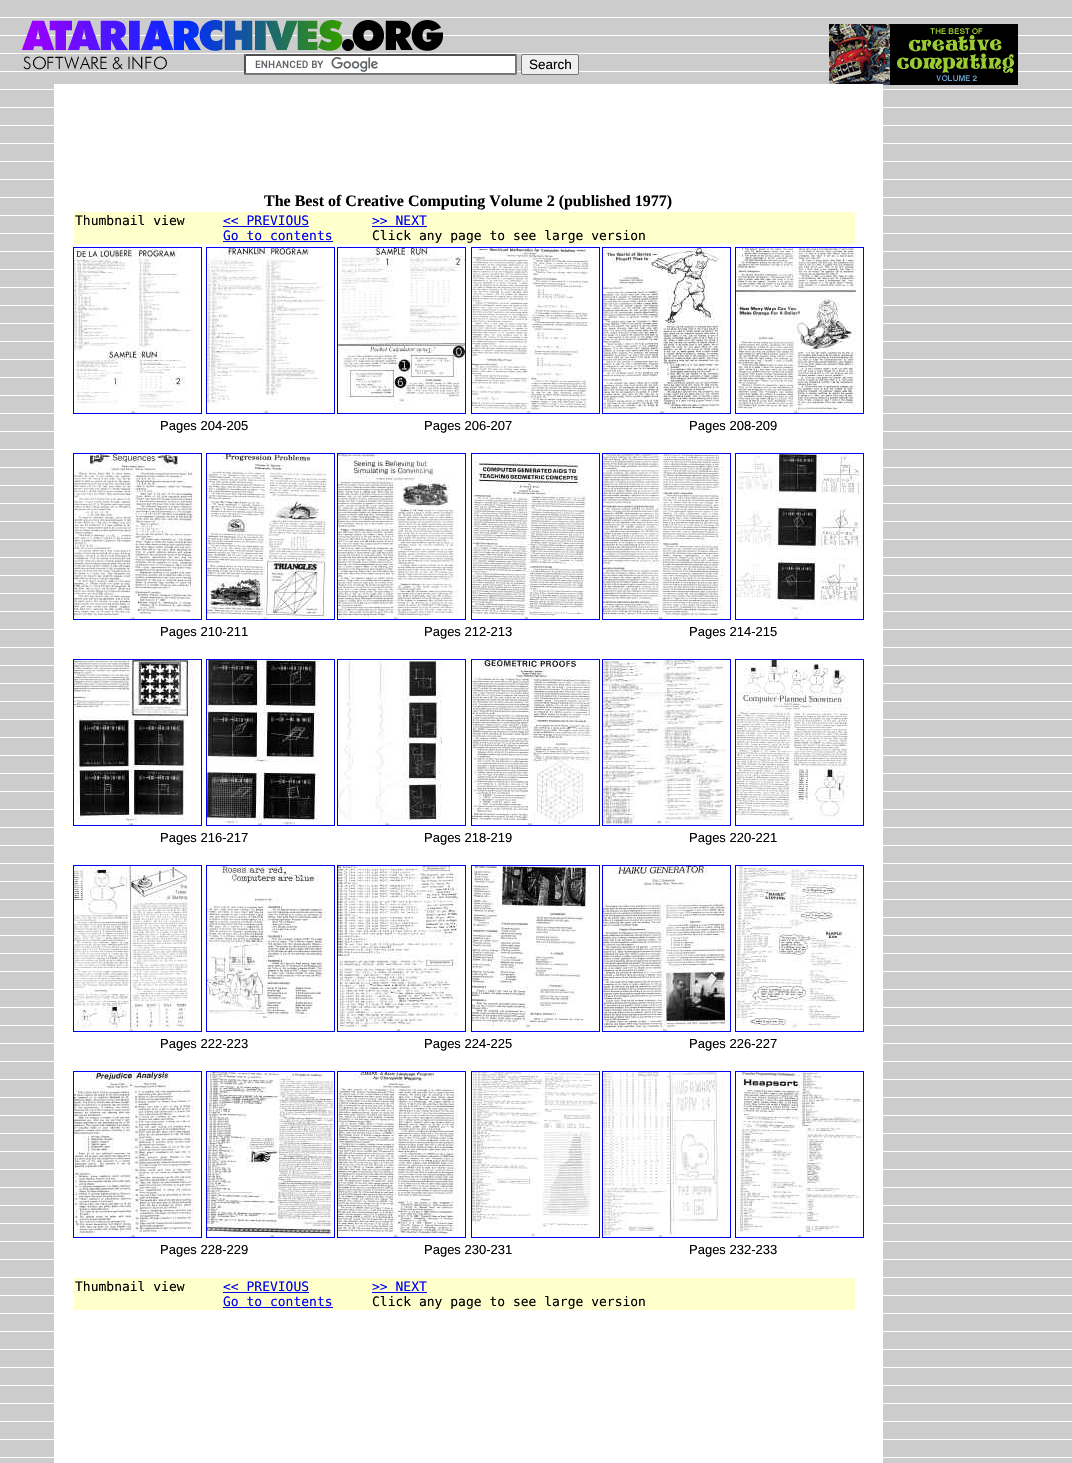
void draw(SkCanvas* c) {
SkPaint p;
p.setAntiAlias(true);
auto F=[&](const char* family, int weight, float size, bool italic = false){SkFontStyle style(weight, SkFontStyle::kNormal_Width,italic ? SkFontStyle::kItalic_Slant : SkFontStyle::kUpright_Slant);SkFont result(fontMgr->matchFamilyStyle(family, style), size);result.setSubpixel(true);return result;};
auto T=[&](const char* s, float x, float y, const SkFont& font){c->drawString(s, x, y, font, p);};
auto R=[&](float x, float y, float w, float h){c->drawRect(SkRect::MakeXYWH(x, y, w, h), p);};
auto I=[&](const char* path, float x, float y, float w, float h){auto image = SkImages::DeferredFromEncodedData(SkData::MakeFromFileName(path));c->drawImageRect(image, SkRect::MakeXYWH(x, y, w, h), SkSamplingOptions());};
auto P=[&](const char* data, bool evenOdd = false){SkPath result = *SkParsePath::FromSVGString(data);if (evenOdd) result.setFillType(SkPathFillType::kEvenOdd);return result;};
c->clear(0xffffffff);
I("1.png",0,0,1072,1463);
I("2.png",22,20,421,50);
I("3.png",829,24,189,61);
p.setColor(0xffffffff);
R(54,84,829,1379);
R(244,54,273,21);
I("4.png",255,57,123,15);
p.setColor(0xff4f4f4f);
c->drawPath(P("M244 54h273l-2 2h-269z"),p);
p.setColor(0xff767676);
c->drawPath(P("M517 54v21l-2-2v-17z"),p);
c->drawPath(P("M517 75h-273l2-2h269z"),p);
p.setColor(0xff4f4f4f);
c->drawPath(P("M244 75v-21l2 2v17z"),p);
p.setColor(0xffefefef);
c->drawRoundRect(SkRect::MakeXYWH(521.5,54.5,57,20),1.5,1.5,p);
p.setStroke(true);
p.setStrokeWidth(1);
p.setColor(0xff767676);
c->drawRoundRect(SkRect::MakeXYWH(521.5,54.5,57,20),1.5,1.5,p);
auto f1 = F("Liberation Sans",400,13.5);
p.setStroke(false);
p.setColor(0xff000000);
T("Search",529,69,f1);
auto f2 = F("Liberation Serif",700,16);
T("The Best of Creative Computing Volume 2 (published 1977)",264,206,f2);
p.setColor(0xffffffcc);
R(74,212,781,32);
auto f3 = F("DejaVu Sans Mono",400,13);
p.setColor(0xff000000);
T("Thumbnail view",75,225,f3);
p.setColor(0xff0000ee);
T("<< PREVIOUS",223,225,f3);
R(223,226,86,1);
T(">> NEXT",372,225,f3);
R(372,226,55,1);
T("Go to contents",223,240,f3);
R(223,241,110,1);
p.setColor(0xff000000);
T("Click any page to see large version",372,240,f3);
p.setStroke(true);
p.setColor(0xff0000ee);
c->drawRect(SkRect::MakeXYWH(73.5,247.5,128,166),p);
c->drawRect(SkRect::MakeXYWH(206.5,247.5,128,166),p);
I("5.png",74,248,120,165);
I("6.png",207,248,120,165);
auto f4 = F("Liberation Sans",400,13);
p.setStroke(false);
p.setColor(0xff000000);
T("Pages 204-205",160,430,f4);
p.setStroke(true);
p.setColor(0xff0000ee);
c->drawRect(SkRect::MakeXYWH(337.5,247.5,128,166),p);
c->drawRect(SkRect::MakeXYWH(471.5,247.5,128,166),p);
I("7.png",338,248,127,160);
I("8.png",472,248,120,165);
p.setStroke(false);
p.setColor(0xff000000);
T("Pages 206-207",424,430,f4);
p.setStroke(true);
p.setColor(0xff0000ee);
c->drawRect(SkRect::MakeXYWH(602.5,247.5,128,166),p);
c->drawRect(SkRect::MakeXYWH(735.5,247.5,128,166),p);
I("9.png",603,248,120,165);
I("10.png",736,248,120,165);
p.setStroke(false);
p.setColor(0xff000000);
T("Pages 208-209",689,430,f4);
p.setStroke(true);
p.setColor(0xff0000ee);
c->drawRect(SkRect::MakeXYWH(73.5,453.5,128,166),p);
c->drawRect(SkRect::MakeXYWH(206.5,453.5,128,166),p);
I("11.png",74,454,120,165);
I("12.png",207,454,120,165);
p.setStroke(false);
p.setColor(0xff000000);
T("Pages 210-211",160,636,f4);
p.setStroke(true);
p.setColor(0xff0000ee);
c->drawRect(SkRect::MakeXYWH(337.5,453.5,128,166),p);
c->drawRect(SkRect::MakeXYWH(471.5,453.5,128,166),p);
I("13.png",338,454,120,165);
I("14.png",472,454,120,165);
p.setStroke(false);
p.setColor(0xff000000);
T("Pages 212-213",424,636,f4);
p.setStroke(true);
p.setColor(0xff0000ee);
c->drawRect(SkRect::MakeXYWH(602.5,453.5,128,166),p);
c->drawRect(SkRect::MakeXYWH(735.5,453.5,128,166),p);
I("15.png",603,454,120,165);
I("16.png",736,454,127,165);
p.setStroke(false);
p.setColor(0xff000000);
T("Pages 214-215",689,636,f4);
p.setStroke(true);
p.setColor(0xff0000ee);
c->drawRect(SkRect::MakeXYWH(73.5,659.5,128,166),p);
c->drawRect(SkRect::MakeXYWH(206.5,659.5,128,166),p);
I("17.png",74,660,120,165);
I("18.png",207,660,112,165);
p.setStroke(false);
p.setColor(0xff000000);
T("Pages 216-217",160,842,f4);
p.setStroke(true);
p.setColor(0xff0000ee);
c->drawRect(SkRect::MakeXYWH(337.5,659.5,128,166),p);
c->drawRect(SkRect::MakeXYWH(471.5,659.5,128,166),p);
I("19.png",338,660,104,165);
I("20.png",472,660,120,165);
p.setStroke(false);
p.setColor(0xff000000);
T("Pages 218-219",424,842,f4);
p.setStroke(true);
p.setColor(0xff0000ee);
c->drawRect(SkRect::MakeXYWH(602.5,659.5,128,166),p);
c->drawRect(SkRect::MakeXYWH(735.5,659.5,128,166),p);
I("21.png",603,660,124,165);
I("22.png",736,660,112,160);
p.setStroke(false);
p.setColor(0xff000000);
T("Pages 220-221",689,842,f4);
p.setStroke(true);
p.setColor(0xff0000ee);
c->drawRect(SkRect::MakeXYWH(73.5,865.5,128,166),p);
c->drawRect(SkRect::MakeXYWH(206.5,865.5,128,166),p);
I("23.png",74,866,120,165);
I("24.png",207,866,120,152);
p.setStroke(false);
p.setColor(0xff000000);
T("Pages 222-223",160,1048,f4);
p.setStroke(true);
p.setColor(0xff0000ee);
c->drawRect(SkRect::MakeXYWH(337.5,865.5,128,166),p);
c->drawRect(SkRect::MakeXYWH(471.5,865.5,128,166),p);
I("25.png",338,866,120,165);
I("26.png",472,866,120,162);
p.setStroke(false);
p.setColor(0xff000000);
T("Pages 224-225",424,1048,f4);
p.setStroke(true);
p.setColor(0xff0000ee);
c->drawRect(SkRect::MakeXYWH(602.5,865.5,128,166),p);
c->drawRect(SkRect::MakeXYWH(735.5,865.5,128,166),p);
I("27.png",603,866,127,165);
I("28.png",736,866,125,162);
p.setStroke(false);
p.setColor(0xff000000);
T("Pages 226-227",689,1048,f4);
p.setStroke(true);
p.setColor(0xff0000ee);
c->drawRect(SkRect::MakeXYWH(73.5,1071.5,128,166),p);
c->drawRect(SkRect::MakeXYWH(206.5,1071.5,128,166),p);
I("29.png",74,1072,120,165);
I("30.png",207,1072,127,165);
p.setStroke(false);
p.setColor(0xff000000);
T("Pages 228-229",160,1254,f4);
p.setStroke(true);
p.setColor(0xff0000ee);
c->drawRect(SkRect::MakeXYWH(337.5,1071.5,128,166),p);
c->drawRect(SkRect::MakeXYWH(471.5,1071.5,128,166),p);
I("31.png",338,1072,120,165);
I("32.png",472,1072,127,165);
p.setStroke(false);
p.setColor(0xff000000);
T("Pages 230-231",424,1254,f4);
p.setStroke(true);
p.setColor(0xff0000ee);
c->drawRect(SkRect::MakeXYWH(602.5,1071.5,128,166),p);
c->drawRect(SkRect::MakeXYWH(735.5,1071.5,128,166),p);
I("33.png",603,1072,120,165);
I("34.png",736,1072,127,165);
p.setStroke(false);
p.setColor(0xff000000);
T("Pages 232-233",689,1254,f4);
p.setColor(0xffffffcc);
R(74,1278,781,32);
p.setColor(0xff000000);
T("Thumbnail view",75,1291,f3);
p.setColor(0xff0000ee);
T("<< PREVIOUS",223,1291,f3);
R(223,1292,86,1);
T(">> NEXT",372,1291,f3);
R(372,1292,55,1);
T("Go to contents",223,1306,f3);
R(223,1307,110,1);
p.setColor(0xff000000);
T("Click any page to see large version",372,1306,f3);
}
